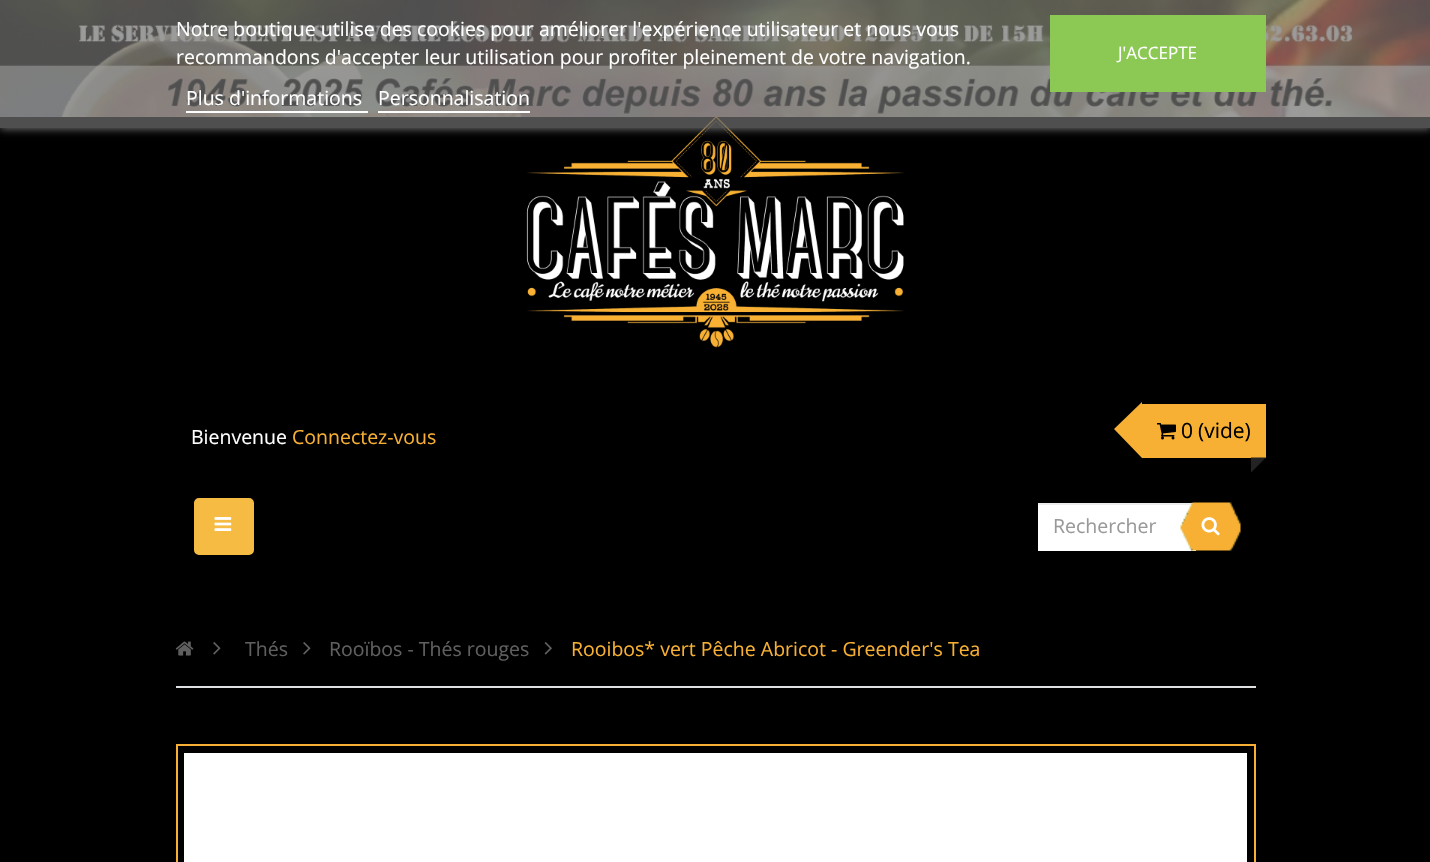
void draw(SkCanvas* c) {
SkPaint p;
p.setAntiAlias(true);
auto F=[&](const char* family, int weight, float size, bool italic = false){SkFontStyle style(weight, SkFontStyle::kNormal_Width,italic ? SkFontStyle::kItalic_Slant : SkFontStyle::kUpright_Slant);SkFont result(fontMgr->matchFamilyStyle(family, style), size);result.setSubpixel(true);return result;};
auto T=[&](const char* s, float x, float y, const SkFont& font){c->drawString(s, x, y, font, p);};
auto R=[&](float x, float y, float w, float h){c->drawRect(SkRect::MakeXYWH(x, y, w, h), p);};
auto I=[&](const char* path, float x, float y, float w, float h){auto image = SkImages::DeferredFromEncodedData(SkData::MakeFromFileName(path));c->drawImageRect(image, SkRect::MakeXYWH(x, y, w, h), SkSamplingOptions());};
auto P=[&](const char* data, bool evenOdd = false){SkPath result = *SkParsePath::FromSVGString(data);if (evenOdd) result.setFillType(SkPathFillType::kEvenOdd);return result;};
c->clear(0xff000000);
I("1.png",0,0,1430,117);
I("6.png",526,116,378,232);
c->save();
c->clipPath(P("M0 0h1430v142h-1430zm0 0h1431v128h-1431z",true),true);
p.setColor(0xff707070);
p.setMaskFilter(SkMaskFilter::MakeBlur(kNormal_SkBlurStyle, 4));
c->drawRect(SkRect::MakeXYWH(0,2,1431,127),p);
p.setMaskFilter(nullptr);
c->restore();
p.setColor(0xb3707070);
R(0,0,1430,128);
auto f1 = F("Open Sans",400,19.5);
p.setColor(0xffffffff);
T("Notre boutique utilise des cookies pour améliorer l'expérience utilisateur et nous vous",176,36,f1);
T("recommandons d'accepter leur utilisation pour profiter pleinement de votre navigation.",176,64,f1);
T("Plus d'informations",186,105,f1);
R(186,111,182,2);
T("Personnalisation",378,105,f1);
R(378,111,152,2);
p.setColor(0xff8bc954);
R(1050,15,216,77);
auto f2 = F("Open Sans",400,17);
p.setColor(0xffffffff);
T("J'ACCEPTE",1118,59,f2);
T("Bienvenue",191,444,f1);
p.setColor(0xfff7b034);
T("Connectez-vous",292,444,f1);
R(1142,404,124,54);
c->drawPath(P("M1142 402v56l-28-29z"),p);
I("2.png",1157,423,19,17);
auto f3 = F("Open Sans",400,21);
p.setColor(0xff000000);
T("0",1181,438,f3);
T("(vide)",1198,438,f3);
p.setColor(0xff232323);
c->drawPath(P("M1251 457.5h15l-15 15z"),p);
p.setColor(0xfff6bb42);
c->drawRoundRect(SkRect::MakeXYWH(195,499,58,55),4,4,p);
p.setStroke(true);
p.setStrokeWidth(2);
c->drawRoundRect(SkRect::MakeXYWH(195,499,58,55),4,4,p);
I("3.png",214,517,18,14);
p.setStroke(false);
p.setColor(0xffffffff);
R(1038,505,158,46);
p.setColor(0xffececec);
R(1038,503,158,2);
p.setColor(0xff999999);
T("Rechercher",1053,533,f1);
I("4.png",1180,502,61,49);
I("5.png",1201,517,19,19);
p.setColor(0xffdfe0e1);
R(176,686,1080,2);
I("7.png",175,641,19,15);
I("8.png",213,642,8,13);
p.setColor(0xff5f5f5f);
T("Thés",245,656,f1);
I("8.png",303,642,8,13);
T("Rooïbos - Thés rouges",329,656,f1);
I("9.png",544,642,8,13);
p.setColor(0xfff7b034);
T("Rooibos* vert Pêche Abricot - Greender's Tea",571,656,f1);
p.setStroke(true);
c->drawRect(SkRect::MakeXYWH(177,745,1078,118),p);
p.setStroke(false);
p.setColor(0xffffffff);
R(184,753,1063,109);
}
